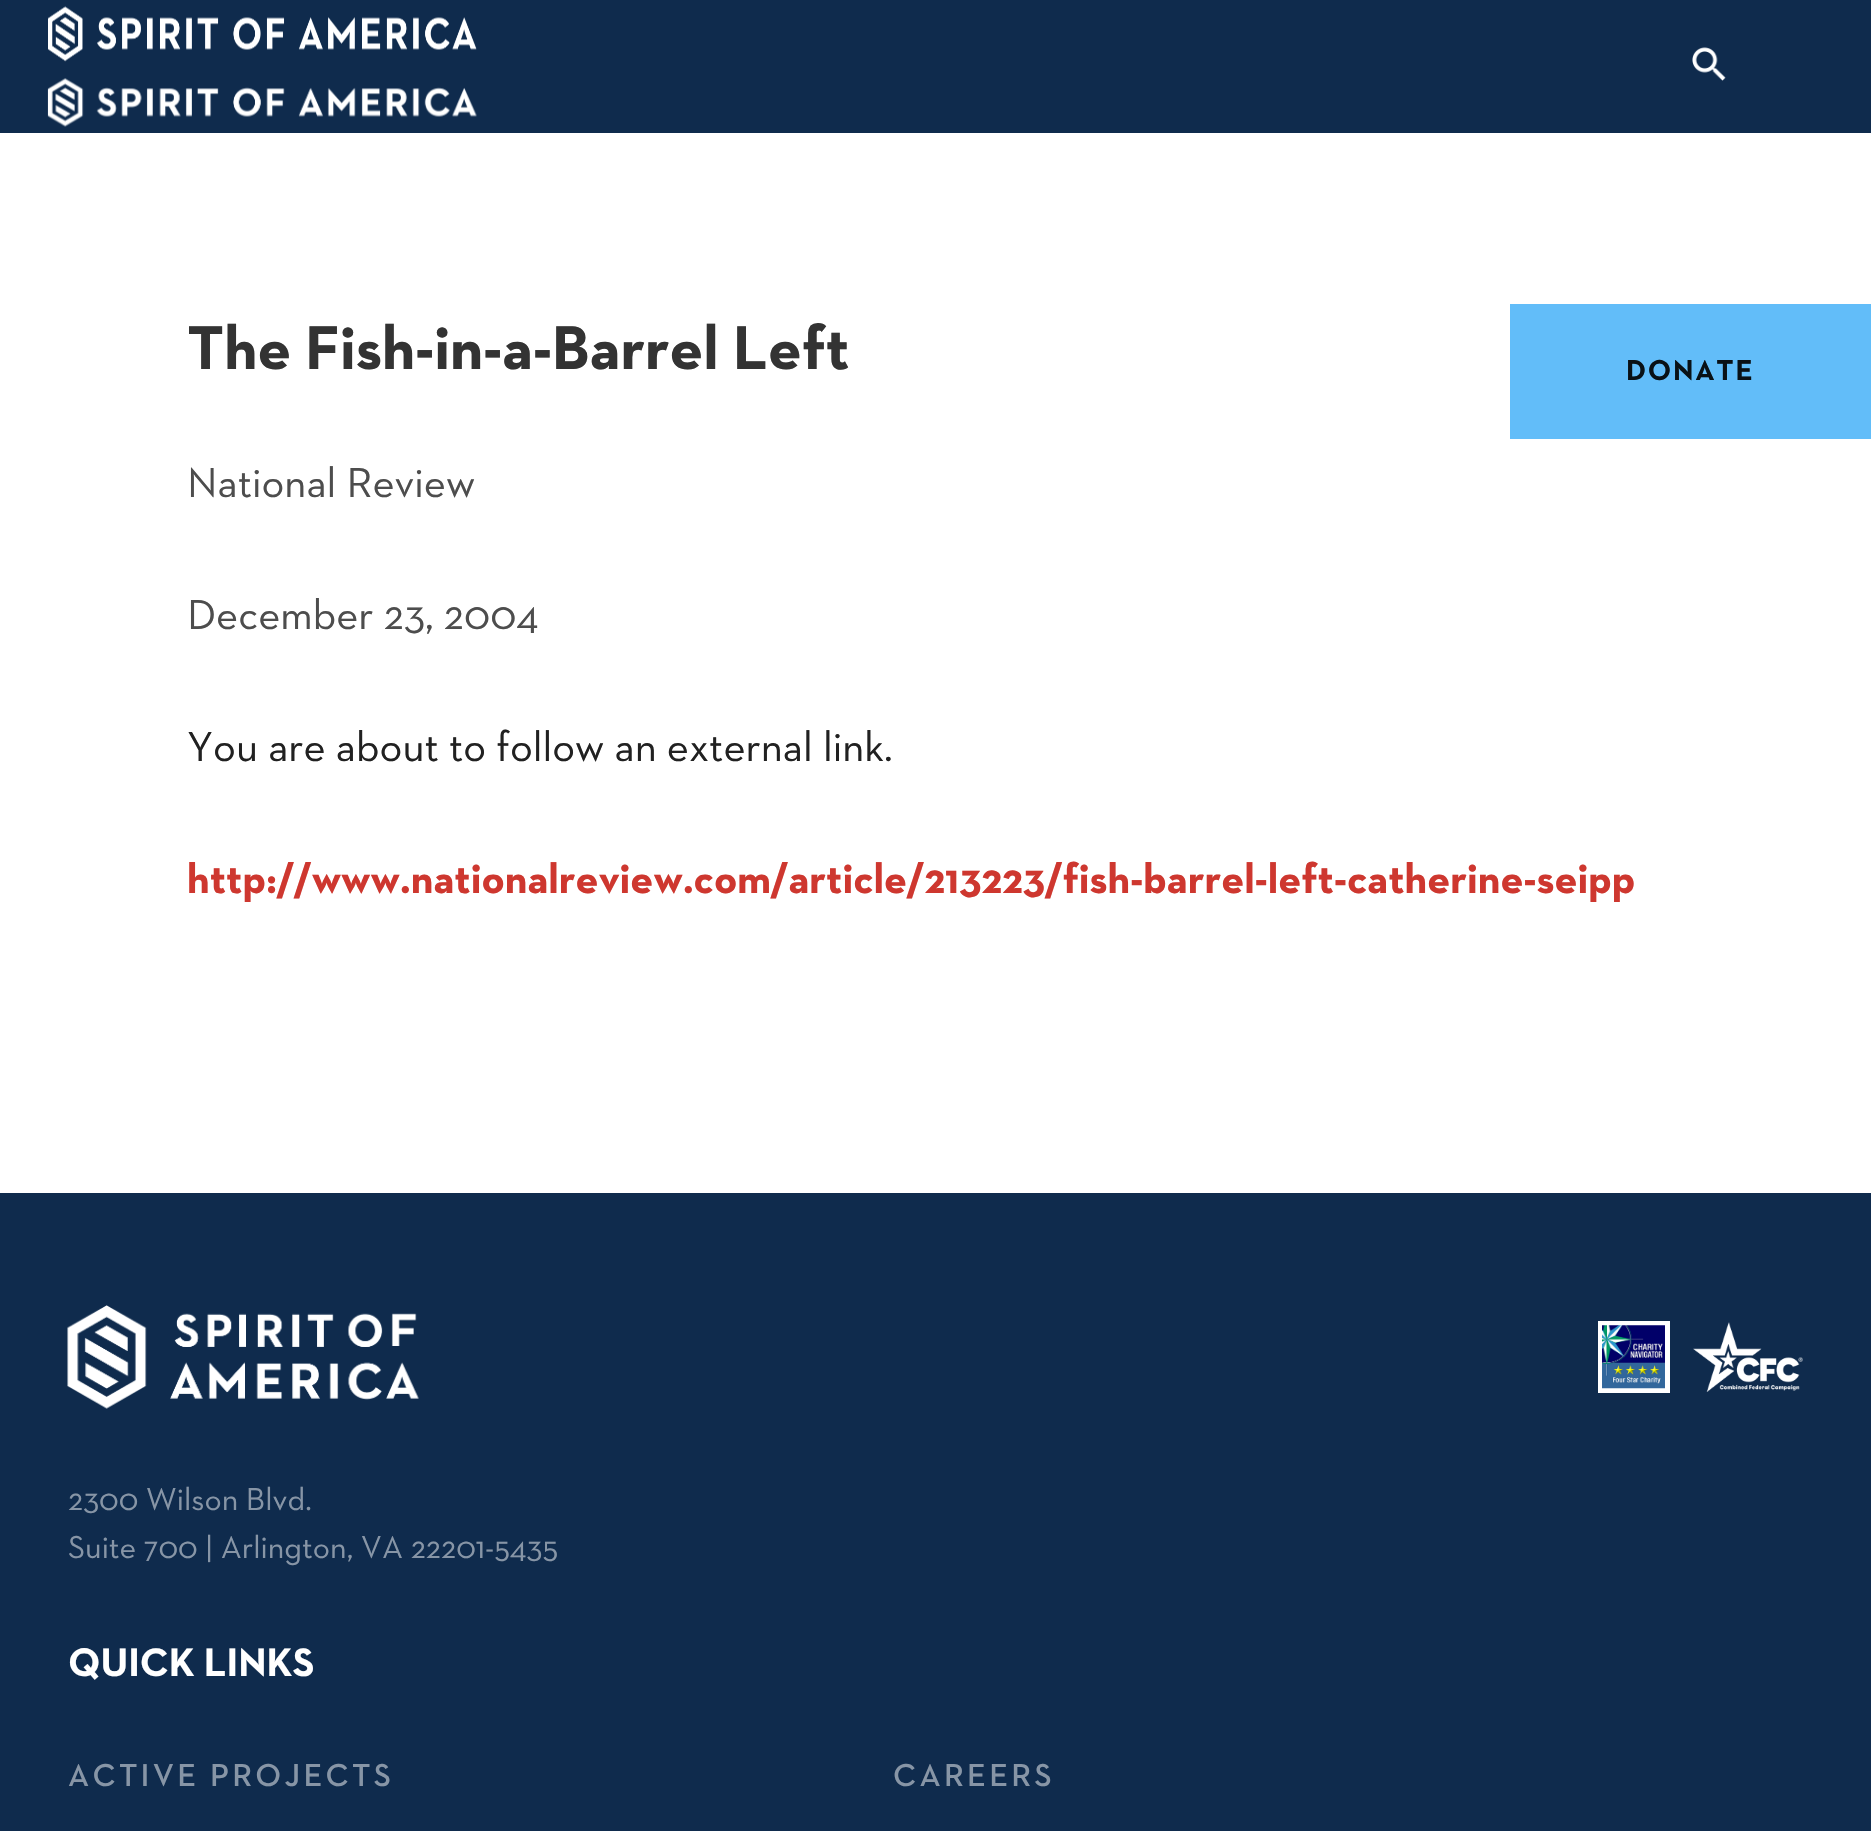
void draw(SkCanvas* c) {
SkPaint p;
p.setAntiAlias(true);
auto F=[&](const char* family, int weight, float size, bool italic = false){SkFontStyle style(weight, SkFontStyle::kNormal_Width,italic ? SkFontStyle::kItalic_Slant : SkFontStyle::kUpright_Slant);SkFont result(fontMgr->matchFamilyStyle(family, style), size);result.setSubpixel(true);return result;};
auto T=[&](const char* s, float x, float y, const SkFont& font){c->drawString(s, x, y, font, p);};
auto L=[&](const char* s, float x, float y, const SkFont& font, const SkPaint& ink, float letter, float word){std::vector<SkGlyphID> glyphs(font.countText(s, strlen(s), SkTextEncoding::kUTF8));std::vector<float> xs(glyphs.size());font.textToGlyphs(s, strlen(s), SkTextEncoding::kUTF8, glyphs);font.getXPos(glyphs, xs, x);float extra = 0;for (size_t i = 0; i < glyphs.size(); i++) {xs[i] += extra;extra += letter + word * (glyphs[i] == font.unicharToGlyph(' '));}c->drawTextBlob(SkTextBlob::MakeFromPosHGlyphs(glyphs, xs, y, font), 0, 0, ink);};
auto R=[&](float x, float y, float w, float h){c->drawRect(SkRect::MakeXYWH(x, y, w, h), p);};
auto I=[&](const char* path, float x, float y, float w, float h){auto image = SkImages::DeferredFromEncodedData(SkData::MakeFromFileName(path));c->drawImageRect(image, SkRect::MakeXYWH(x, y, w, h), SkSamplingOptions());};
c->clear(0xffffffff);
p.setColor(0xff0f2b4d);
R(0,0,1871,133);
I("1.png",48,6,429,56);
I("2.png",47,78,430,49);
I("3.png",1692,47,34,34);
auto f1 = F("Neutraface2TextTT",700,62.75);
p.setColor(0xff333333);
T("The Fish-in-a-Barrel Left",187,369,f1);
auto f2 = F("Neutraface2TextTT",400,42.8);
p.setColor(0xff4d4d4d);
T("National Review",187,497,f2);
T("December 23, 2004",187,629,f2);
p.setColor(0xff212121);
T("You are about to follow an external link.",187,761,f2);
auto f3 = F("Neutraface2TextTT",700,42.8);
p.setColor(0xffce372f);
T("http://www.nationalreview.com/article/213223/fish-barrel-left-catherine-seipp",187,893,f3);
p.setColor(0xff0f2b4d);
R(0,1193,1871,638);
I("4.png",67,1305,352,104);
p.setStroke(true);
p.setStrokeWidth(5);
p.setColor(0xffffffff);
c->drawRect(SkRect::MakeXYWH(1600.5,1323.5,67,67),p);
I("5.png",1602,1325,63,64);
I("6.png",1693,1322,110,70);
auto f4 = F("Neutraface2TextTT",400,32.2);
p.setStroke(false);
p.setColor(0xff8795a6);
T("2300 Wilson Blvd.",68,1510,f4);
T("Suite 700 | Arlington, VA 22201-5435",68,1558,f4);
auto f5 = F("Neutraface2TextTT",700,40.5);
p.setColor(0xffffffff);
T("QUICK LINKS",68,1676,f5);
auto f6 = F("Neutraface2TextTT",600,32.2);
p.setColor(0xff8795a6);
L("ACTIVE PROJECTS",68,1786,f6,p,3.25,0);
L("CAREERS",893,1786,f6,p,3.25,0);
p.setColor(0xff62bdf9);
R(1510,304,361,135);
auto f7 = F("Neutraface2TextTT",700,29.25);
p.setColor(0xff091116);
L("DONATE",1626,380,f7,p,1.75,0);
}
